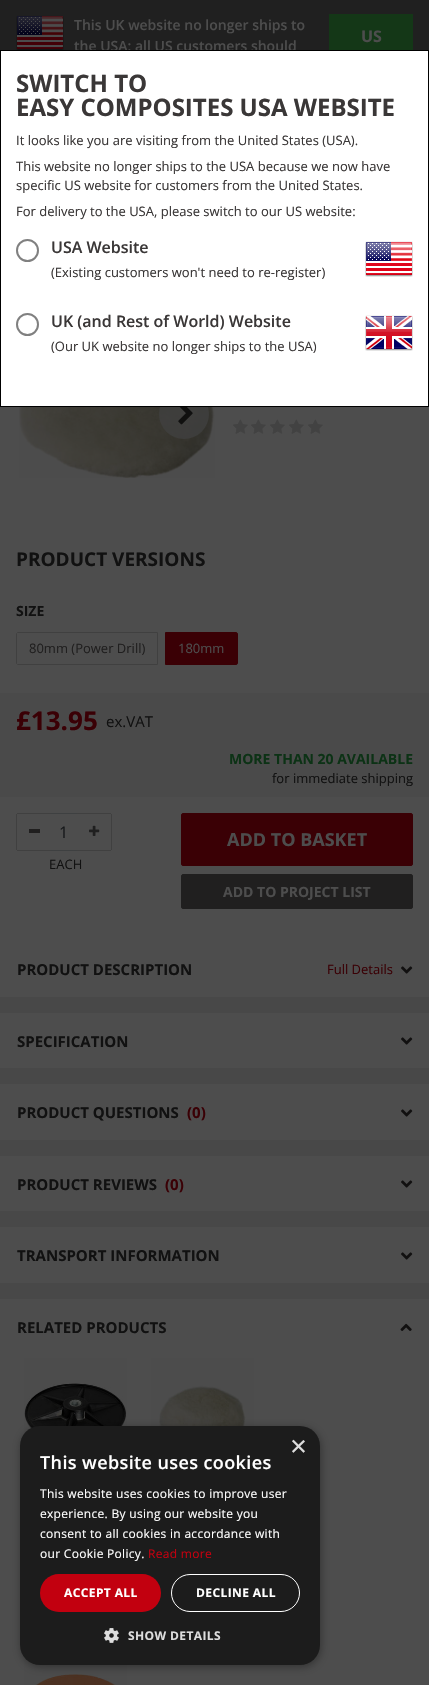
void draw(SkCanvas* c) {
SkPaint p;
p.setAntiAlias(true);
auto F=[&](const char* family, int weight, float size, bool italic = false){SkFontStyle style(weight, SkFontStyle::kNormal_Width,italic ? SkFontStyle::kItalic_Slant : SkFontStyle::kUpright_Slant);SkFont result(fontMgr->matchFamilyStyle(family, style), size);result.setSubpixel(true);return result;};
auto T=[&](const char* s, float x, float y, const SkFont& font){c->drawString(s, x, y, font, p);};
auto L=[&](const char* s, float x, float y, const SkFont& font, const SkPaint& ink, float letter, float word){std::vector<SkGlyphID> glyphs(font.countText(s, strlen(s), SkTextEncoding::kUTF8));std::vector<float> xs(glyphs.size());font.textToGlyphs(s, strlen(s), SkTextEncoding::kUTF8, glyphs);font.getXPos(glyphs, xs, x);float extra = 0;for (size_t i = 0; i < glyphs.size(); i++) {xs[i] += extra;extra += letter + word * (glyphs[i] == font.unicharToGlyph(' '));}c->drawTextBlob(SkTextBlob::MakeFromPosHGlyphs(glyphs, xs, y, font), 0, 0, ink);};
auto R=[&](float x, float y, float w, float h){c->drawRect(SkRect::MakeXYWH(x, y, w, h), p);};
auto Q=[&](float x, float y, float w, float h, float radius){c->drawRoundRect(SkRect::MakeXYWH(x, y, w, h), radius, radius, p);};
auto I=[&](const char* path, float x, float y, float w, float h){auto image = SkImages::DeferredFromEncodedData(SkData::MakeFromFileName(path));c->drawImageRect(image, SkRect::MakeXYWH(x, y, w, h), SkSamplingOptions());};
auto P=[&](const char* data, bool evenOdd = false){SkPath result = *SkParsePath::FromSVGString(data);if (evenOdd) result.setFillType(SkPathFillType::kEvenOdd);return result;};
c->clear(0xff484848);
p.setColor(0xff202020);
R(0,0,429,50);
I("1.png",16,15,48,35);
auto f1 = F("Open Sans",600,14);
p.setColor(0xff4d4d4d);
T("This UK website no longer ships to",74,30,f1);
T("the USA; all US customers should",74,51,f1);
p.setColor(0xff143717);
R(329,14,84,36);
auto f2 = F("Open Sans",700,16);
p.setColor(0xff4d4d4d);
T("US",361,42,f2);
R(0,407,429,590);
I("5.png",19,407,196,71);
p.setColor(0xbf404040);
c->drawCircle(184,414,25,p);
p.setColor(0xffffffff);
c->drawRect(SkRect::MakeXYWH(.5,50.5,428,356),p);
p.setStroke(true);
p.setStrokeWidth(1);
p.setColor(0xff000000);
c->drawRect(SkRect::MakeXYWH(.5,50.5,428,356),p);
auto f3 = F("Open Sans",700,24);
p.setStroke(false);
p.setColor(0xff3a3737);
T("SWITCH TO",16,92,f3);
T("EASY COMPOSITES USA WEBSITE",16,116,f3);
auto f4 = F("Open Sans",400,13);
T("It looks like you are visiting from the United States (USA).",16,145,f4);
T("This website no longer ships to the USA because we now have",16,171,f4);
T("specific US website for customers from the United States.",16,190,f4);
T("For delivery to the USA, please switch to our US website:",16,216,f4);
p.setStroke(true);
p.setStrokeWidth(2);
p.setColor(0xff808080);
c->drawCircle(27.5,250.5,10.5,p);
auto f5 = F("Open Sans",600,16);
p.setStroke(false);
p.setColor(0xff3a3737);
T("USA Website",51,253,f5);
T("(Existing customers won't need to re-register)",51,277,f4);
I("2.png",365,241,48,36);
p.setStroke(true);
p.setColor(0xff808080);
c->drawCircle(27.5,324.5,10.5,p);
p.setStroke(false);
p.setColor(0xff3a3737);
T("UK (and Rest of World) Website",51,327,f5);
T("(Our UK website no longer ships to the USA)",51,351,f4);
I("3.png",365,315,48,36);
I("4.png",178,407,15,18);
I("6.png",233,419,15,15);
I("6.png",251,419,15,15);
I("6.png",270,419,15,15);
I("6.png",289,419,15,15);
I("6.png",308,419,15,15);
I("7.png",233,420,7,14);
I("7.png",251,420,7,14);
I("7.png",270,420,7,14);
I("7.png",289,420,7,14);
I("7.png",308,420,7,14);
auto f6 = F("Open Sans",700,19);
p.setColor(0xff111111);
T("PRODUCT VERSIONS",16,566,f6);
auto f7 = F("Open Sans",700,14);
T("SIZE",16,616,f7);
p.setStroke(true);
p.setStrokeWidth(1);
p.setColor(0xff404040);
c->drawPath(P("M18 632.5h139.5v32h-139.5c-1 0-1.5-.5-1.5-1.5v-29c0-1 .5-1.5 1.5-1.5z"),p);
p.setStroke(false);
p.setColor(0xff201f1f);
T("80mm (Power Drill)",29,653,f4);
p.setColor(0xff3a0005);
c->drawPath(P("M165.5 632.5h70.5c1 0 1.5 .5 1.5 1.5v29c0 1-.5 1.5-1.5 1.5h-70.5z"),p);
p.setStroke(true);
c->drawPath(P("M165.5 632.5h70.5c1 0 1.5 .5 1.5 1.5v29c0 1-.5 1.5-1.5 1.5h-70.5z"),p);
p.setStroke(false);
p.setColor(0xff4d4d4d);
T("180mm",178,653,f4);
p.setColor(0xff4a4a4a);
R(0,693,429,104);
auto f8 = F("Open Sans",700,26);
p.setColor(0xff3a0005);
T("£13.95",16,730,f8);
auto f9 = F("Open Sans",400,15);
p.setColor(0xff111111);
T("ex.VAT",106,727,f9);
p.setColor(0xff0c3215);
T("MORE THAN 20 AVAILABLE",229,764,f7);
p.setColor(0xff111111);
T("for immediate shipping",272,783,f4);
p.setColor(0xff3e4041);
R(50,813,28,1);
p.setColor(0xff404040);
R(17,813,34,1);
p.setColor(0xff3e4041);
R(50,850,28,1);
p.setColor(0xff404040);
R(17,850,34,1);
R(16,814,1,36);
p.setColor(0xff201f1f);
R(29,829,11,4);
auto f10 = F("Open Sans",400,16);
p.setColor(0xff16181a);
T("1",59,838,f10);
p.setColor(0xff404040);
R(77,813,34,1);
R(111,814,1,36);
R(77,850,34,1);
I("8.png",89,825,11,11);
p.setColor(0xff111111);
T("EACH",49,869,f4);
p.setColor(0xff3a0005);
c->drawRoundRect(SkRect::MakeXYWH(181.5,813.5,231,52),1.5,1.5,p);
p.setStroke(true);
c->drawRoundRect(SkRect::MakeXYWH(181.5,813.5,231,52),1.5,1.5,p);
auto f11 = F("Open Sans",700,18);
p.setStroke(false);
p.setColor(0xff4d4d4d);
T("ADD TO BASKET",227,846,f11);
p.setColor(0xff201f1f);
c->drawRoundRect(SkRect::MakeXYWH(181.5,874.5,231,34),1.5,1.5,p);
p.setStroke(true);
c->drawRoundRect(SkRect::MakeXYWH(181.5,874.5,231,34),1.5,1.5,p);
p.setStroke(false);
p.setColor(0xff4d4d4d);
T("ADD TO PROJECT LIST",223,897,f7);
auto f12 = F("Open Sans",700,15);
p.setColor(0xff111111);
T("PRODUCT DESCRIPTION",17,975,f12);
p.setColor(0xff3a0005);
T("Full Details",327,974,f4);
I("9.png",401,966,12,8);
p.setColor(0xff4d4d4d);
R(0,1013,429,55);
p.setColor(0xff111111);
T("SPECIFICATION",17,1047,f12);
I("9.png",401,1037,12,8);
p.setColor(0xff4d4d4d);
R(0,1084,429,56);
p.setColor(0xff111111);
T("PRODUCT QUESTIONS",17,1118,f12);
p.setColor(0xff3a0005);
T("(0)",187,1118,f12);
I("9.png",401,1109,12,8);
p.setColor(0xff4d4d4d);
R(0,1156,429,55);
p.setColor(0xff111111);
T("PRODUCT REVIEWS",17,1190,f12);
p.setColor(0xff3a0005);
T("(0)",165,1190,f12);
I("9.png",401,1180,12,8);
p.setColor(0xff4d4d4d);
R(0,1227,429,56);
p.setColor(0xff111111);
T("TRANSPORT INFORMATION",17,1261,f12);
I("9.png",401,1252,12,8);
p.setColor(0xff4d4d4d);
R(0,1299,429,386);
p.setColor(0xff111111);
T("RELATED PRODUCTS",17,1333,f12);
I("10.png",400,1323,12,8);
I("11.png",24,1358,103,76);
I("12.png",151,1358,103,68);
I("13.png",24,1657,103,28);
p.setColor(0x59000000);
p.setMaskFilter(SkMaskFilter::MakeBlur(kNormal_SkBlurStyle, 4));
c->drawRoundRect(SkRect::MakeXYWH(21,1428,300,239),20,20,p);
p.setMaskFilter(nullptr);
p.setColor(0xff1c1c1c);
Q(20,1426,300,239,20);
auto f13 = F("Liberation Sans",400,29);
p.setColor(0xffdddddd);
T("×",290,1456,f13);
auto f14 = F("Open Sans",600,18);
p.setColor(0xffffffff);
L("This website uses cookies",40,1469,f14,p,.4,0);
auto f15 = F("Open Sans",400,12);
L("This website uses cookies to improve user",40,1498,f15,p,.3,0);
L("experience. By using our website you",40,1518,f15,p,.3,0);
L("consent to all cookies in accordance with",40,1538,f15,p,.3,0);
L("our Cookie Policy.",40,1558,f15,p,.3,0);
p.setColor(0xffc2000f);
L("Read more",148,1558,f15,p,.3,0);
Q(40,1574,121,38,19);
auto f16 = F("Open Sans",700,12);
p.setColor(0xffffffff);
L("ACCEPT ALL",64,1597,f16,p,.4,0);
p.setStroke(true);
c->drawRoundRect(SkRect::MakeXYWH(171.5,1574.5,128,37),18.5,18.5,p);
p.setStroke(false);
L("DECLINE ALL",196,1597,f16,p,.4,0);
I("14.png",104,1628,15,15);
p.setColor(0xffdddddd);
L("SHOW DETAILS",128,1640,f16,p,.4,0);
}
